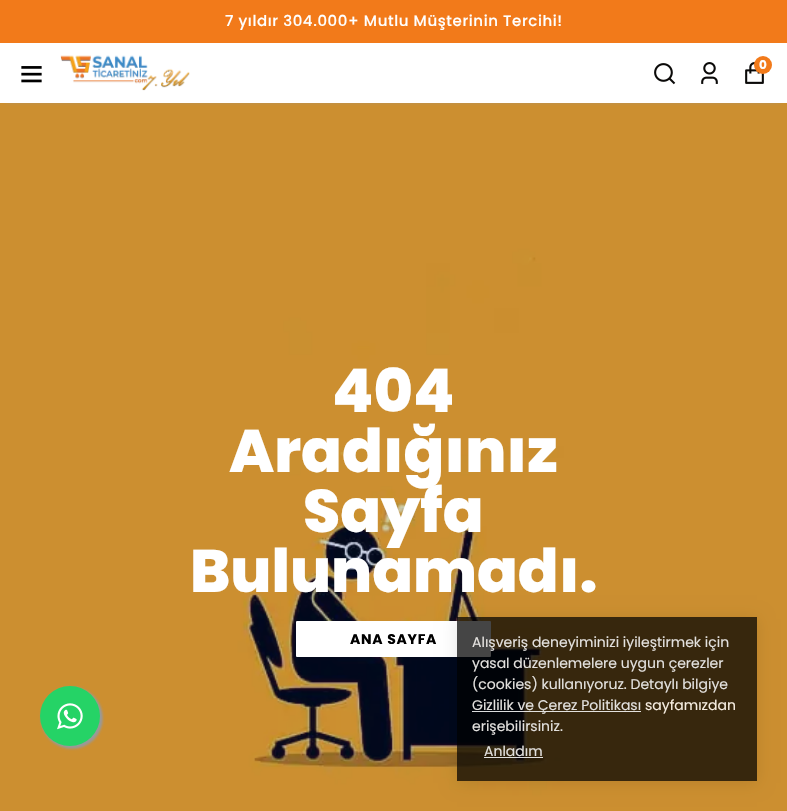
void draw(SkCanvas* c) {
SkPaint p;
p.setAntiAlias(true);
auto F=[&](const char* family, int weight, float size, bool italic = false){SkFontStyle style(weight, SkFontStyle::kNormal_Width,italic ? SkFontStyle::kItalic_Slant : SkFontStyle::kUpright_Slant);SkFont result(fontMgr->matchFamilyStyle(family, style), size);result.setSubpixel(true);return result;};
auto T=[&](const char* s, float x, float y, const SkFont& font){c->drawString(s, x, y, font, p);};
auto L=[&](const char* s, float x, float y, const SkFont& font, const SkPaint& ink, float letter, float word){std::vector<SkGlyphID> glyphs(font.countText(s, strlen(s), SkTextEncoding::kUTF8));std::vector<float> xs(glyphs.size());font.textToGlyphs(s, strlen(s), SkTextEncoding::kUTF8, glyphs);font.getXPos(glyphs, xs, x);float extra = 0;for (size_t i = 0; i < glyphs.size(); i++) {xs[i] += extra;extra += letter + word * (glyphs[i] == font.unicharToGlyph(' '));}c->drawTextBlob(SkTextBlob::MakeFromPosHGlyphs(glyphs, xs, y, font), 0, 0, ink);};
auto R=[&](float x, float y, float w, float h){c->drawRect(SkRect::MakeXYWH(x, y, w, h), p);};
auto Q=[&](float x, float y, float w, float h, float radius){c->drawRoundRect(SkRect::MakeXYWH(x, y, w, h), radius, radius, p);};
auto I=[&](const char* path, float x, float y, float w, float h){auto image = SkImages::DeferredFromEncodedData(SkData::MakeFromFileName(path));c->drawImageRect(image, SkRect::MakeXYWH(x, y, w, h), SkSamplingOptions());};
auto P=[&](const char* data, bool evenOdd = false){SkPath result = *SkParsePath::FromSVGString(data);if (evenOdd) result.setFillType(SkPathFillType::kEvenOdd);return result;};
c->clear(0xffffffff);
I("6.png",0,103,787,708);
p.setColor(0xff999999);
p.setMaskFilter(SkMaskFilter::MakeBlur(kNormal_SkBlurStyle, 1.5));
c->drawRoundRect(SkRect::MakeXYWH(42,688,60,60),30,30,p);
p.setMaskFilter(nullptr);
p.setColor(0xfff27a1a);
R(0,0,787,43);
auto f1 = F("Poppins",500,15);
p.setColor(0xffffffff);
L("7 yıldır 304.000+ Mutlu Müşterinin Tercihi!",225,26,f1,p,.6,0);
c->save();
c->clipRect(SkRect::MakeXYWH(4,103,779,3));
p.setColor(0xff989898);
p.setMaskFilter(SkMaskFilter::MakeBlur(kNormal_SkBlurStyle, 2.5));
c->drawRect(SkRect::MakeXYWH(7,55,773,46),p);
p.setMaskFilter(nullptr);
c->restore();
I("1.png",60,55,130,36);
I("2.png",654,63,22,22);
I("3.png",701,62,17,22);
I("4.png",745,62,19,22);
p.setColor(0xfff27a1a);
c->drawCircle(763,65,9,p);
auto f2 = F("Poppins",700,12);
p.setColor(0xffffffff);
T("0",759,69,f2);
I("5.png",21,66,21,17);
Q(296,621,195,36,1);
c->save();
c->clipPath(P("M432 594h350v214h-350zm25 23h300v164h-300z",true),true);
p.setColor(0x1a000000);
p.setMaskFilter(SkMaskFilter::MakeBlur(kNormal_SkBlurStyle, 8));
c->drawRect(SkRect::MakeXYWH(457,619,300,164),p);
p.setMaskFilter(nullptr);
c->restore();
p.setColor(0xba000000);
R(457,617,300,164);
auto f3 = F("Poppins",400,14);
p.setColor(0xffe3e1de);
T("Alışveriş deneyiminizi iyileştirmek için",472,647,f3);
T("yasal düzenlemelere uygun çerezler",472,668,f3);
T("(cookies) kullanıyoruz. Detaylı bilgiye",472,689,f3);
p.setColor(0xdbffffff);
R(472,711,169,1);
p.setColor(0xffe3e1de);
T("Gizlilik ve Çerez Politikası",472,710,f3);
p.setColor(0xfff8efe2);
T("sayfamızdan",645,710,f3);
p.setColor(0xffe3e1de);
T("erişebilirsiniz.",472,731,f3);
T("Anladım",484,756,f3);
p.setColor(0xdbffffff);
R(484,757,59,1);
auto f4 = F("Poppins",800,60);
p.setColor(0xffffffff);
T("404",332,412,f4);
T("Aradığınız",229,472,f4);
T("Sayfa",303,532,f4);
T("Bulunamadı.",190,592,f4);
auto f5 = F("Poppins",700,14);
p.setColor(0xff000000);
L("ANA SAYFA",350,644,f5,p,.75,0);
p.setColor(0xff999999);
p.setMaskFilter(SkMaskFilter::MakeBlur(kNormal_SkBlurStyle, 1.5));
c->drawRoundRect(SkRect::MakeXYWH(42,688,60,60),30,30,p);
p.setMaskFilter(nullptr);
p.setColor(0xff25d366);
c->drawCircle(70,716,30,p);
I("7.png",57,703,26,27);
}
